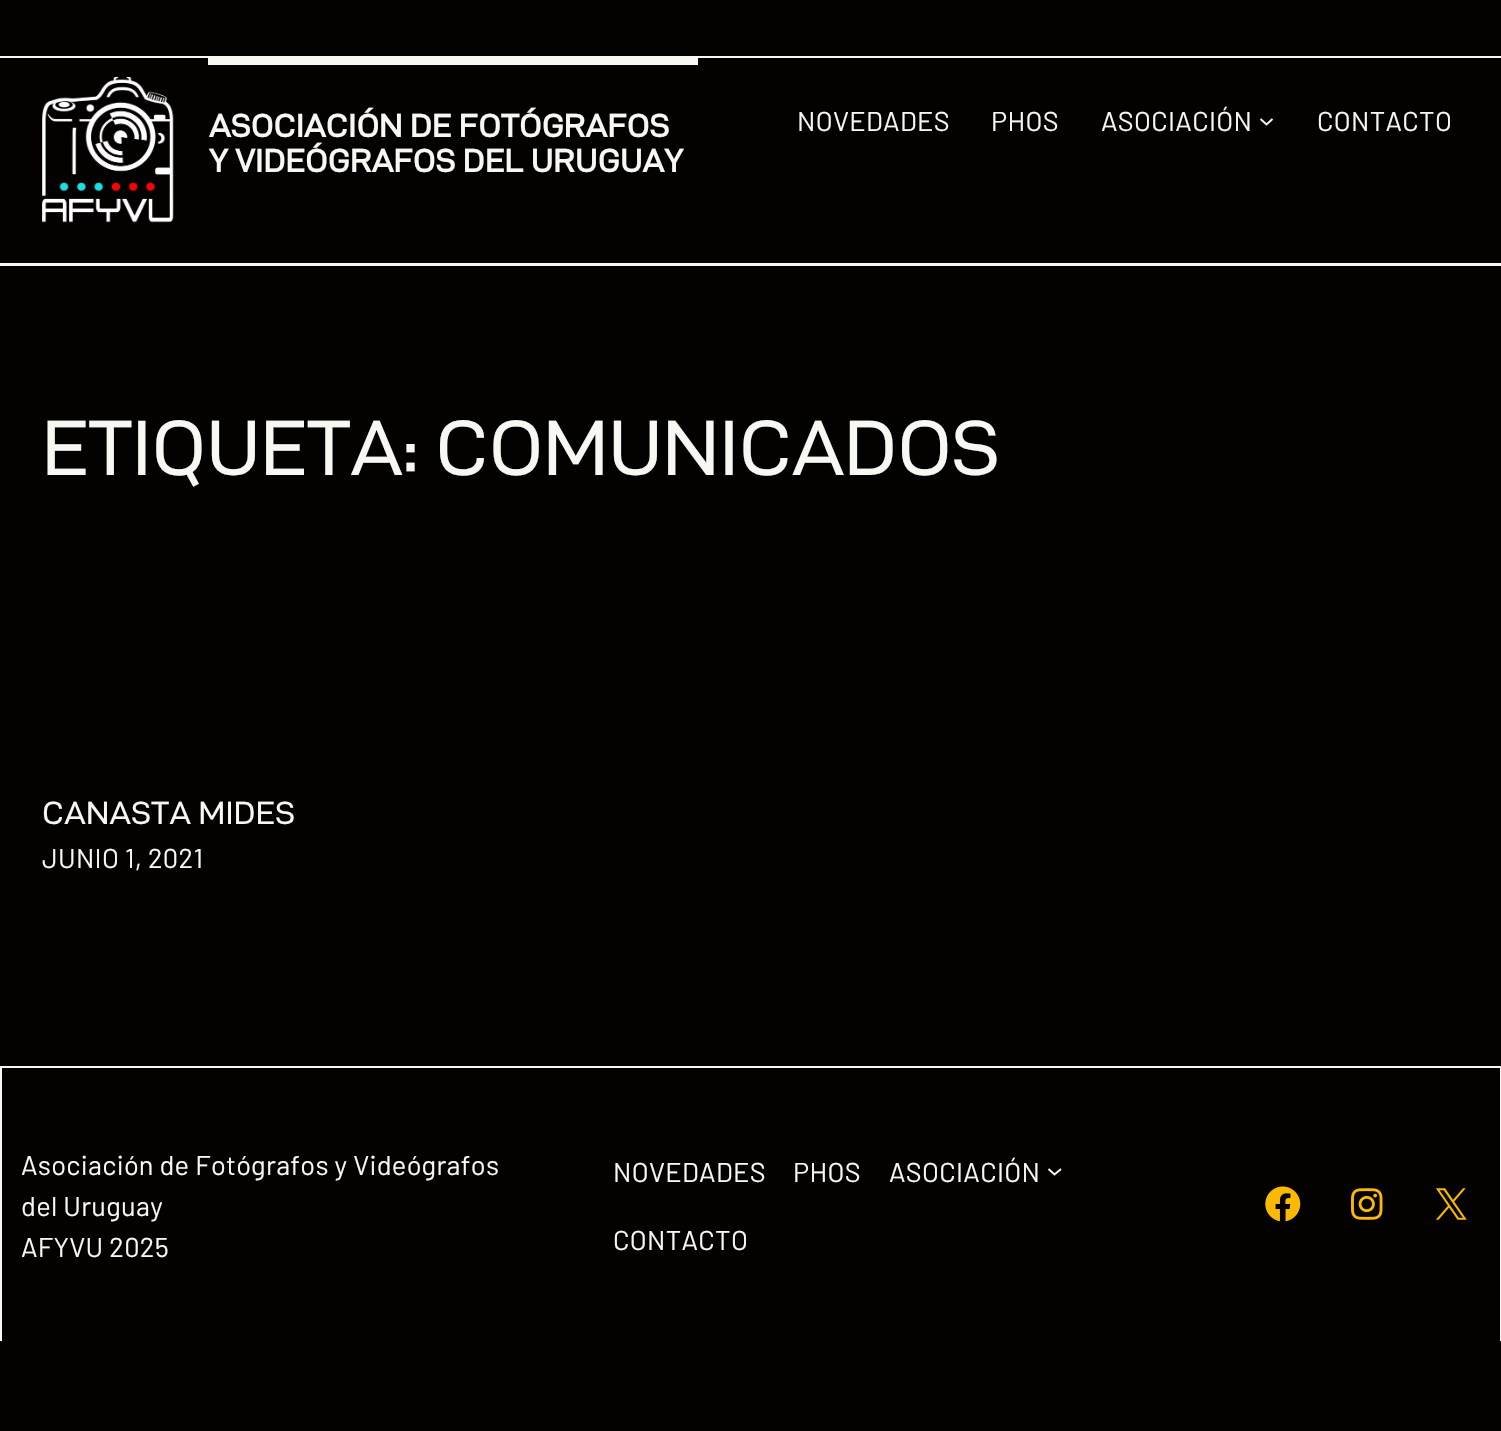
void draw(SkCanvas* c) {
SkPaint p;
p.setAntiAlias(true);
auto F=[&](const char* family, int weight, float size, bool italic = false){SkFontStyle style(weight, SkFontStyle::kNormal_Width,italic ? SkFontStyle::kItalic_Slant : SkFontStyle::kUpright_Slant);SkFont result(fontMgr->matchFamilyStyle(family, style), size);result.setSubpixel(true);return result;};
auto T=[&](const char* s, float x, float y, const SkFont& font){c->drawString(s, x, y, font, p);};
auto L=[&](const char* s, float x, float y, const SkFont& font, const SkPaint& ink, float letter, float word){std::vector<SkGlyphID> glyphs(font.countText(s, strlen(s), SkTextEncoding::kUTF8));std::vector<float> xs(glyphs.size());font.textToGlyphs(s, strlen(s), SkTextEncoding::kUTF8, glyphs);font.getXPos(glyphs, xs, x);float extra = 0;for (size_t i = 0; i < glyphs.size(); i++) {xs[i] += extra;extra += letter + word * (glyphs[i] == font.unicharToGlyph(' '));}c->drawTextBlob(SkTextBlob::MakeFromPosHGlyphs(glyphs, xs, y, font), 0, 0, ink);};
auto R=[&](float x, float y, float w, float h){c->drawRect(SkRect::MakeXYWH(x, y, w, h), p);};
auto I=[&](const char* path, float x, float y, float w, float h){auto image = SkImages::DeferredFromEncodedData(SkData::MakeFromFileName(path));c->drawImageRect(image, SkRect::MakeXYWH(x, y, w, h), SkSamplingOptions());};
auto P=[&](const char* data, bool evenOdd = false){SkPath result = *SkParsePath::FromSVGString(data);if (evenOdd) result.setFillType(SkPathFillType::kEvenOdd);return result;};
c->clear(0xff030201);
p.setColor(0xfff7f8f2);
R(0,263,1501,3);
R(0,56,1501,2);
I("1.png",42,77,132,146);
R(208,58,490,7);
auto f1 = F("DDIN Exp",700,32.25);
L("ASOCIACIÓN DE FOTÓGRAFOS",209,137,f1,p,.3,0);
L("Y VIDEÓGRAFOS DEL URUGUAY",209,172,f1,p,.3,0);
auto f2 = F("Barlow",400,27.2);
L("NOVEDADES",797,131,f2,p,.3,0);
L("PHOS",991,131,f2,p,.3,0);
L("ASOCIACIÓN",1101,131,f2,p,.3,0);
p.setStroke(true);
p.setStrokeWidth(2);
c->drawPath(P("M1260.5 119l6 5.5l6-5.5"),p);
p.setStroke(false);
L("CONTACTO",1317,131,f2,p,.3,0);
auto f3 = F("DDIN Exp",400,78.5);
T("ETIQUETA: COMUNICADOS",42,475,f3);
auto f4 = F("DDIN Exp",400,32.25);
L("CANASTA MIDES",42,824,f4,p,.3,0);
L("JUNIO 1, 2021",42,868,f2,p,.3,0);
R(0,1066,1501,2);
R(1500,1066,1,275);
R(0,1066,2,275);
L("Asociación de Fotógrafos y Videógrafos",21,1175,f2,p,.3,0);
L("del Uruguay",21,1216,f2,p,.3,0);
L("AFYVU 2025",21,1257,f2,p,.3,0);
L("NOVEDADES",613,1182,f2,p,.3,0);
L("PHOS",793,1182,f2,p,.3,0);
L("ASOCIACIÓN",889,1182,f2,p,.3,0);
p.setStroke(true);
c->drawPath(P("M1048.5 1169l6 5.5l6.5-5.5"),p);
p.setStroke(false);
L("CONTACTO",613,1250,f2,p,.3,0);
I("2.png",1265,1186,36,36);
I("3.png",1351,1188,32,32);
I("4.png",1436,1188,31,32);
}
